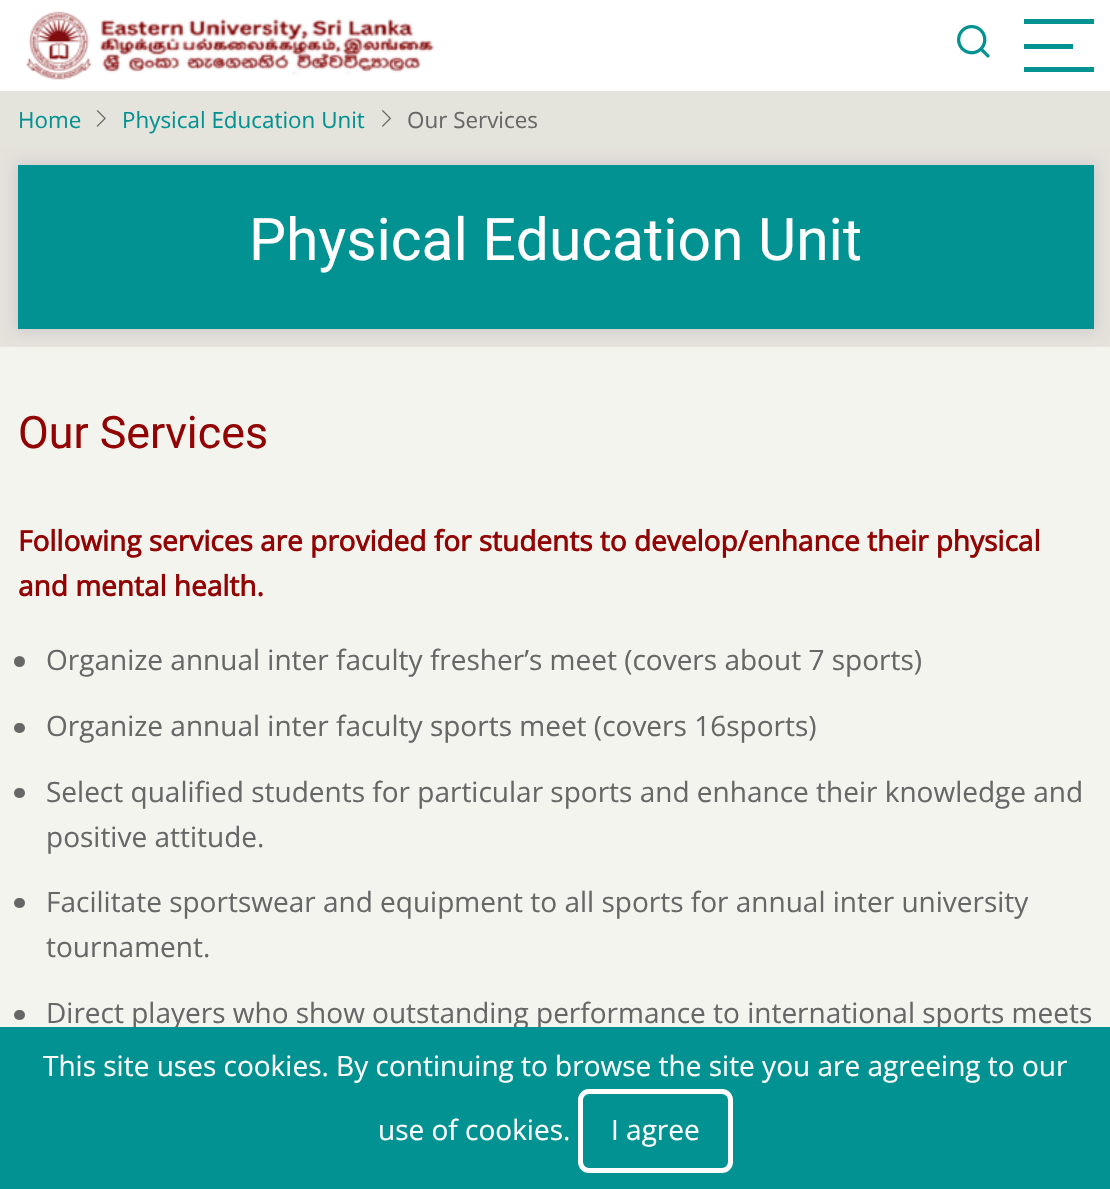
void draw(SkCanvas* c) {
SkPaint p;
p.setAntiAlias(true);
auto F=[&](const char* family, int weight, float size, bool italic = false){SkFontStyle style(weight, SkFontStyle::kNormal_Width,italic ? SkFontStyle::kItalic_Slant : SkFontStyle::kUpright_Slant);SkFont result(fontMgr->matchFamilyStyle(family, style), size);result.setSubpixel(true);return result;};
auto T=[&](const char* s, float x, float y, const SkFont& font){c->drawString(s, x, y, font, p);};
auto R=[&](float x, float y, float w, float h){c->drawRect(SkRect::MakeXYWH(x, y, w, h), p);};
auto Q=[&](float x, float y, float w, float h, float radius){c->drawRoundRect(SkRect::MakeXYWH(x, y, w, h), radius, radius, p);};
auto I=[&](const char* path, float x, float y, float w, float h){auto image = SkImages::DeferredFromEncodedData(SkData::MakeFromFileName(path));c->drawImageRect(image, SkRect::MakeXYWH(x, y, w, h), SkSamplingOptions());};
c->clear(0xfff4f4ef);
p.setColor(0xffffffff);
R(0,0,1110,91);
I("1.png",25,11,410,69);
I("2.png",957,25,33,33);
p.setColor(0xff039292);
R(1024,19,70,5);
R(1024,44,49,5);
R(1024,67,70,5);
p.setColor(0xffe4e4dd);
R(0,91,1110,56);
auto f1 = F("Open Sans",400,22.4);
p.setColor(0xff039292);
T("Home",18,128,f1);
I("3.png",96,110,10,17);
T("Physical Education Unit",122,128,f1);
I("4.png",382,110,9,17);
p.setColor(0xff676767);
T("Our Services",407,128,f1);
p.setColor(0xffe5e2dc);
R(0,147,1110,200);
p.setColor(0xffcccccc);
p.setMaskFilter(SkMaskFilter::MakeBlur(kNormal_SkBlurStyle, 7));
c->drawRect(SkRect::MakeXYWH(16,163,1080,168),p);
p.setMaskFilter(nullptr);
p.setColor(0xff039292);
R(18,165,1076,164);
auto f2 = F("Roboto",400,58.75);
p.setColor(0xffffffff);
T("Physical Education Unit",249,260,f2);
auto f3 = F("Roboto",400,44.75);
p.setColor(0xff920303);
T("Our Services",18,448,f3);
auto f4 = F("Open Sans",700,28);
T("Following services are provided for students to develop/enhance their physical",18,551,f4);
T("and mental health.",18,596,f4);
p.setColor(0xff676767);
c->drawCircle(19.5,661.5,5.5,p);
auto f5 = F("Open Sans",400,28);
T("Organize annual inter faculty fresher’s meet (covers about 7 sports)",46,670,f5);
Q(14,723,11,10,5);
T("Organize annual inter faculty sports meet (covers 16sports)",46,736,f5);
Q(14,788,11,10,5);
T("Select qualified students for particular sports and enhance their knowledge and",46,802,f5);
T("positive attitude.",46,847,f5);
Q(14,898,11,10,5);
T("Facilitate sportswear and equipment to all sports for annual inter university",46,912,f5);
T("tournament.",46,957,f5);
Q(14,1010,11,10,5);
T("Direct players who show outstanding performance to international sports meets",46,1023,f5);
p.setColor(0xff039292);
R(0,1027,1110,162);
p.setColor(0xffffffff);
T("This site uses cookies. By continuing to browse the site you are agreeing to our",43,1076,f5);
T("use of cookies.",378,1140,f5);
p.setStroke(true);
p.setStrokeWidth(5);
c->drawRoundRect(SkRect::MakeXYWH(580.5,1091.5,150,79),8.5,8.5,p);
p.setStroke(false);
T("I agree",611,1140,f5);
}
